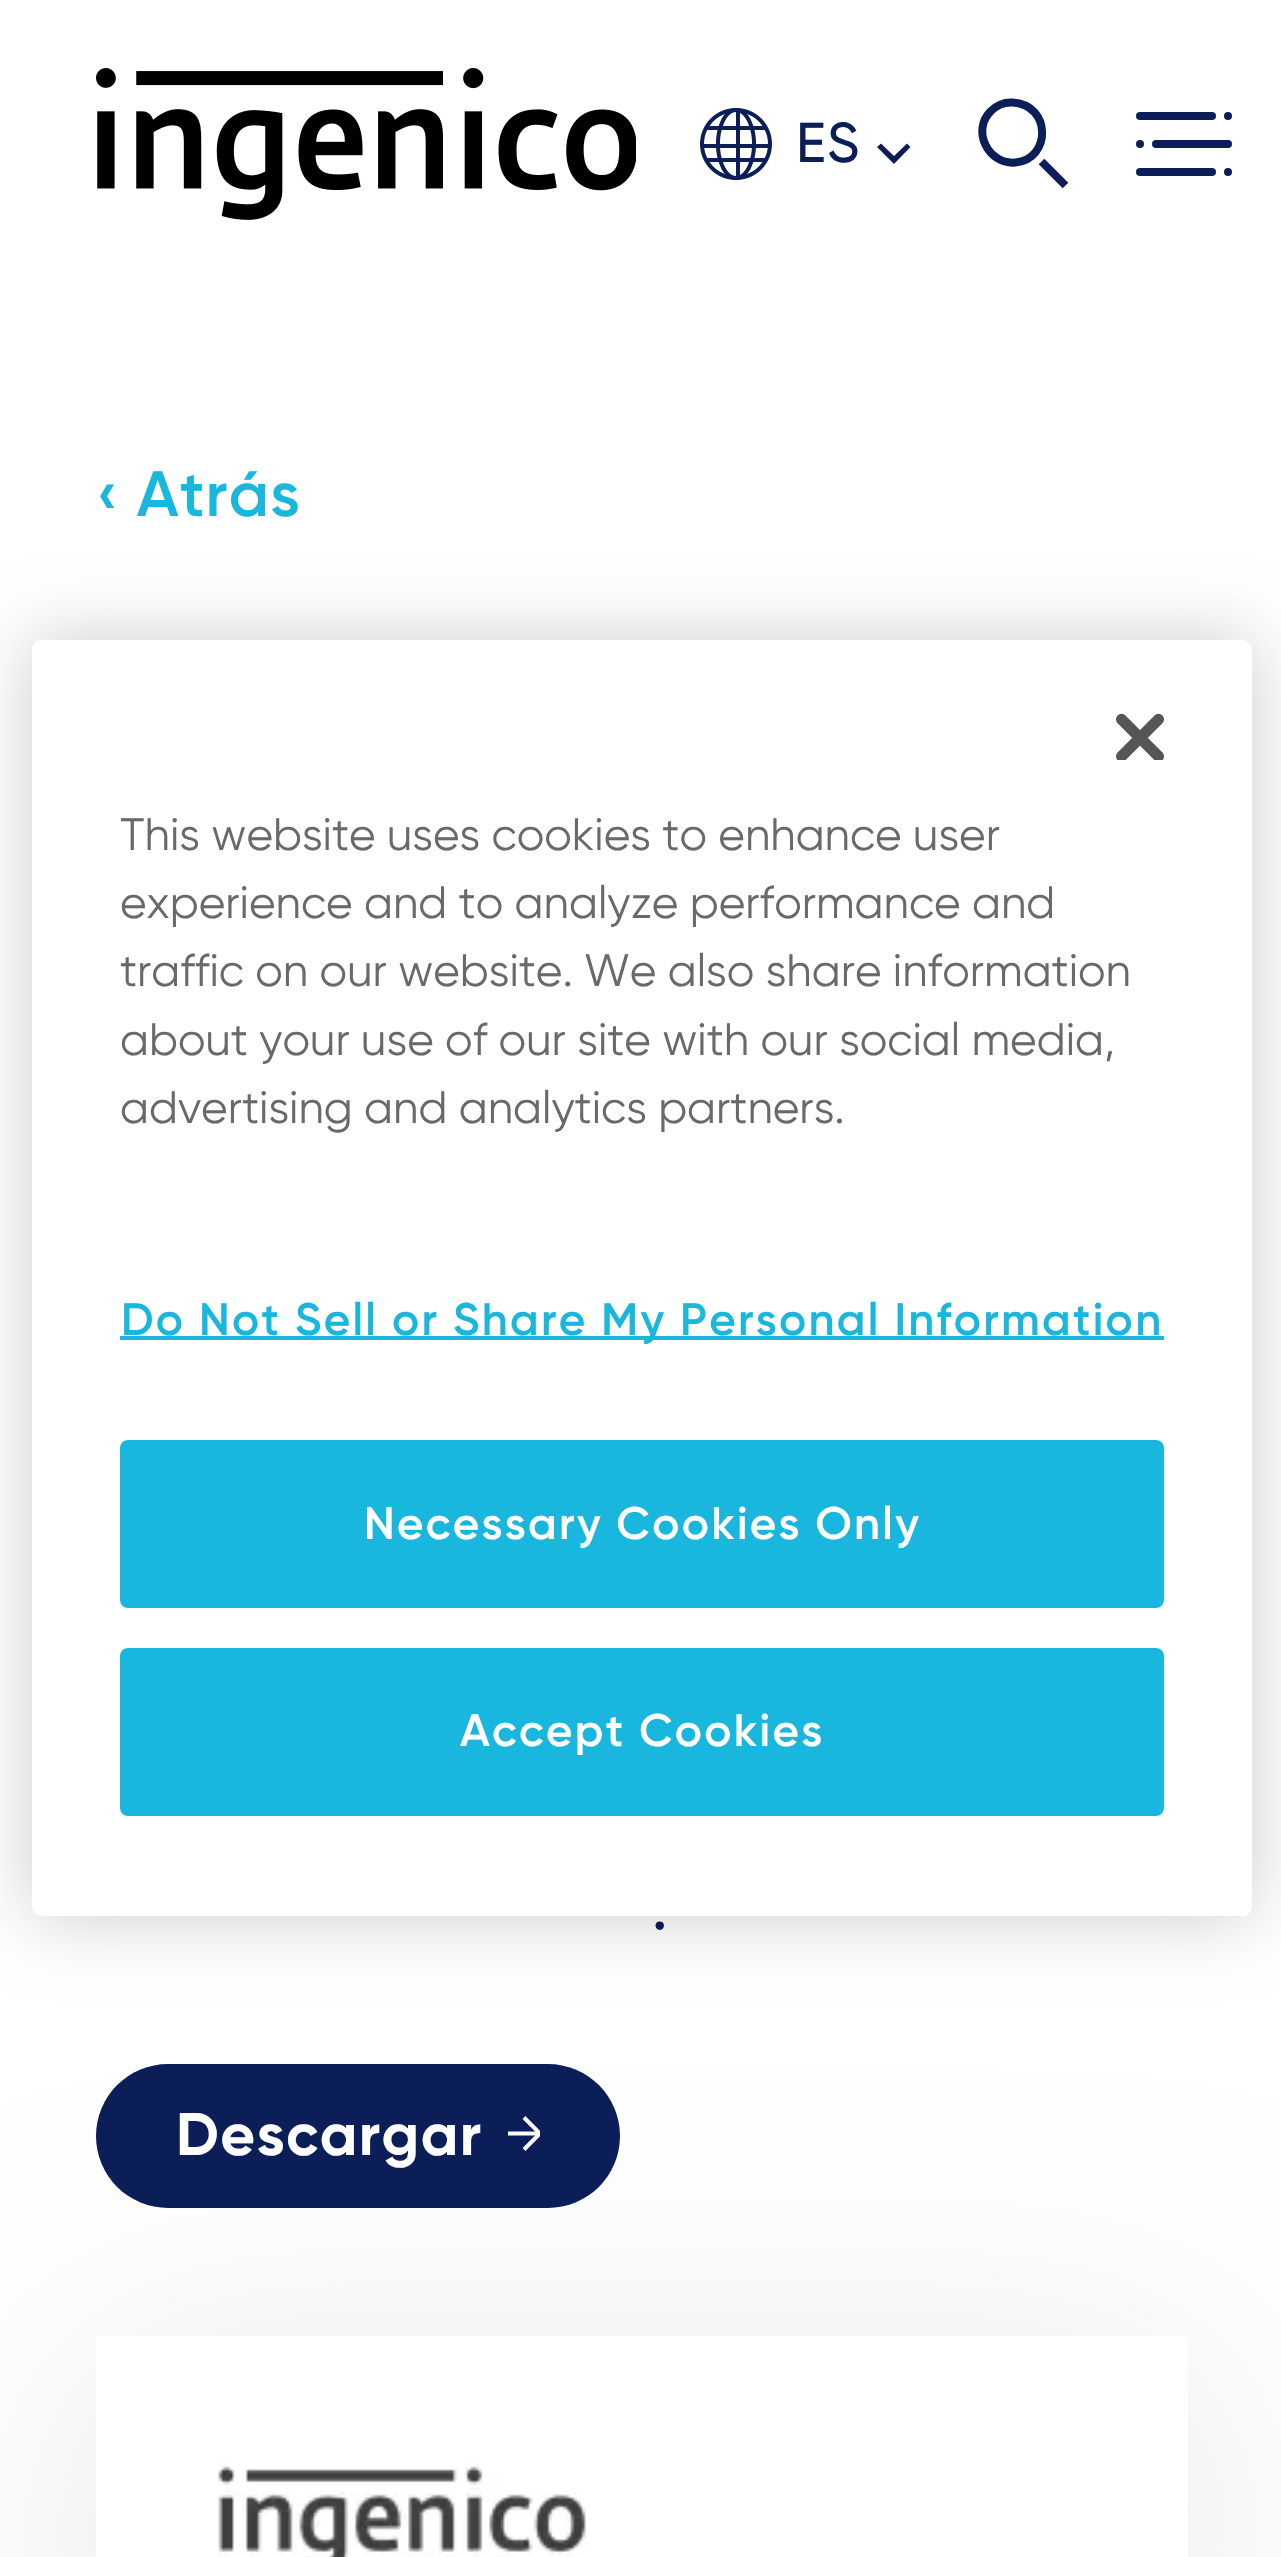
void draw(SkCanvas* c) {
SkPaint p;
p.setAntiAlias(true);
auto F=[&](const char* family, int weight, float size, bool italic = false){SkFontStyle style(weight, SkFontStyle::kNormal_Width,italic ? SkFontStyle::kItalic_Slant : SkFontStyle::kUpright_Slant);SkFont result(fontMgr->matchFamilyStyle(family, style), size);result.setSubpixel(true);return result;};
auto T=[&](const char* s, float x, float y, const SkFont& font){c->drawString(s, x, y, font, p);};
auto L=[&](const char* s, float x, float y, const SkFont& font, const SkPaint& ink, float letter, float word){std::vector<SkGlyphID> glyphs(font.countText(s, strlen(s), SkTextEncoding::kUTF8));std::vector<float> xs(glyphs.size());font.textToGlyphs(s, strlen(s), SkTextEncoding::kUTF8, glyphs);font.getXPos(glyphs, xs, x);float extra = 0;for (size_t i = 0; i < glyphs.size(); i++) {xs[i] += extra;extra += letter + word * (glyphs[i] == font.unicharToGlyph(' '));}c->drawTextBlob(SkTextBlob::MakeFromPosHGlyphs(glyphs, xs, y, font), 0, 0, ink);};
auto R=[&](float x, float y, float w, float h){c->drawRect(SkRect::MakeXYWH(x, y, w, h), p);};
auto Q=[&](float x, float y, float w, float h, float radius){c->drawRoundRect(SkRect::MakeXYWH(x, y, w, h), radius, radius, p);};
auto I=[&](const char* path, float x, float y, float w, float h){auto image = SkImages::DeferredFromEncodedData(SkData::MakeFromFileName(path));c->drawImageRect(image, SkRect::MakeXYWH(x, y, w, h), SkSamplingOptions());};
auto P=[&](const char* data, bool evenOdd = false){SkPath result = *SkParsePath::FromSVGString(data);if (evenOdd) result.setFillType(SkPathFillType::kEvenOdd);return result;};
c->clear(0xffffffff);
I("1.png",96,68,540,152);
I("2.png",700,108,72,72);
auto f1 = F("Gilroy",500,56);
p.setColor(0xff0c1e58);
L("ES",796,162,f1,p,1.25,0);
c->drawPath(P("M907 143.5l-13 12.5l-13-12.5l-4 3.5l17 17l16.5-17z"),p);
p.setStroke(true);
p.setStrokeWidth(8);
p.setStrokeCap(SkPaint::kRound_Cap);
p.setStrokeJoin(SkPaint::kRound_Join);
c->drawPath(P("M991 111c5.5-5.5 13.5-9 21.5-8.5c39 2 39 56.5 3 60c-27.5 2.5-44.5-32.5-24.5-51.5z"),p);
p.setStrokeCap(SkPaint::kButt_Cap);
p.setStrokeJoin(SkPaint::kMiter_Join);
c->drawPath(P("M1041.5 161.5l24 24"),p);
p.setStrokeCap(SkPaint::kRound_Cap);
p.setStrokeJoin(SkPaint::kRound_Join);
c->drawPath(P("M1228 116h0"),p);
c->drawPath(P("M1140 116h72"),p);
c->drawPath(P("M1140 144h0"),p);
c->drawPath(P("M1228 144h-72"),p);
c->drawPath(P("M1228 172h0"),p);
c->drawPath(P("M1140 172h72"),p);
auto f2 = F("Gilroy",600,64);
p.setStroke(false);
p.setColor(0xff19b6dd);
L("‹ Atrás",96,516,f2,p,1.25,0);
c->save();
c->clipPath(P("M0 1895h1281v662h-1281zm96 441h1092v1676h-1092z",true),true);
p.setColor(0x1a000000);
p.setMaskFilter(SkMaskFilter::MakeBlur(kNormal_SkBlurStyle, 160));
c->drawRect(SkRect::MakeXYWH(96,2376,1092,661),p);
p.setMaskFilter(nullptr);
c->restore();
I("3.png",218,2459,370,98);
auto f3 = F("Gilroy",500,64);
p.setColor(0xff0c1e58);
L(".",652,1929,f3,p,1.25,0);
Q(96,2064,524,144,72);
auto f4 = F("Gilroy",700,60);
p.setColor(0xffffffff);
L("Descargar",176,2155,f4,p,1.5,0);
p.setStroke(true);
p.setStrokeWidth(4);
p.setStrokeCap(SkPaint::kButt_Cap);
c->drawPath(P("M508 2133.5h32"),p);
c->save();
c->clipRect(SkRect::MakeXYWH(508,2116,32,36));
p.setStrokeJoin(SkPaint::kMiter_Join);
c->drawPath(P("M524 2117.5l16 16l-16 16"),p);
c->restore();
c->save();
c->clipPath(P("M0 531h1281v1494h-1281zm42 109h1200c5.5 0 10 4.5 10 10v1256c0 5.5-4.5 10-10 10h-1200c-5.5 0-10-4.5-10-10v-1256c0-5.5 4.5-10 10-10z",true),true);
p.setStroke(false);
p.setColor(0x33000000);
p.setMaskFilter(SkMaskFilter::MakeBlur(kNormal_SkBlurStyle, 36));
c->drawRoundRect(SkRect::MakeXYWH(32,640,1220,1276),10,10,p);
p.setMaskFilter(nullptr);
c->restore();
p.setColor(0xffffffff);
Q(32,640,1220,1276,10);
I("4.png",1116,713,48,47);
auto f5 = F("gilroy",400,45.5);
p.setColor(0xff696969);
T("This website uses cookies to enhance user",120,850,f5);
T("experience and to analyze performance and",120,918,f5);
T("traffic on our website. We also share information",120,986,f5);
T("about your use of our site with our social media,",120,1055,f5);
T("advertising and analytics partners.",120,1123,f5);
p.setColor(0xff19b6dd);
R(120,1336,1044,4);
auto f6 = F("Gilroy",600,45.5);
L("Do Not Sell or Share My Personal Information",121,1335,f6,p,2.3,0);
c->drawRoundRect(SkRect::MakeXYWH(122,1442,1040,164),6,6,p);
p.setStroke(true);
c->drawRoundRect(SkRect::MakeXYWH(122,1442,1040,164),6,6,p);
p.setStroke(false);
p.setColor(0xffffffff);
L("Necessary Cookies Only",364,1539,f6,p,2.3,0);
p.setColor(0xff19b6dd);
c->drawRoundRect(SkRect::MakeXYWH(122,1650,1040,164),6,6,p);
p.setStroke(true);
c->drawRoundRect(SkRect::MakeXYWH(122,1650,1040,164),6,6,p);
p.setStroke(false);
p.setColor(0xffffffff);
L("Accept Cookies",460,1746,f6,p,2.3,0);
}
